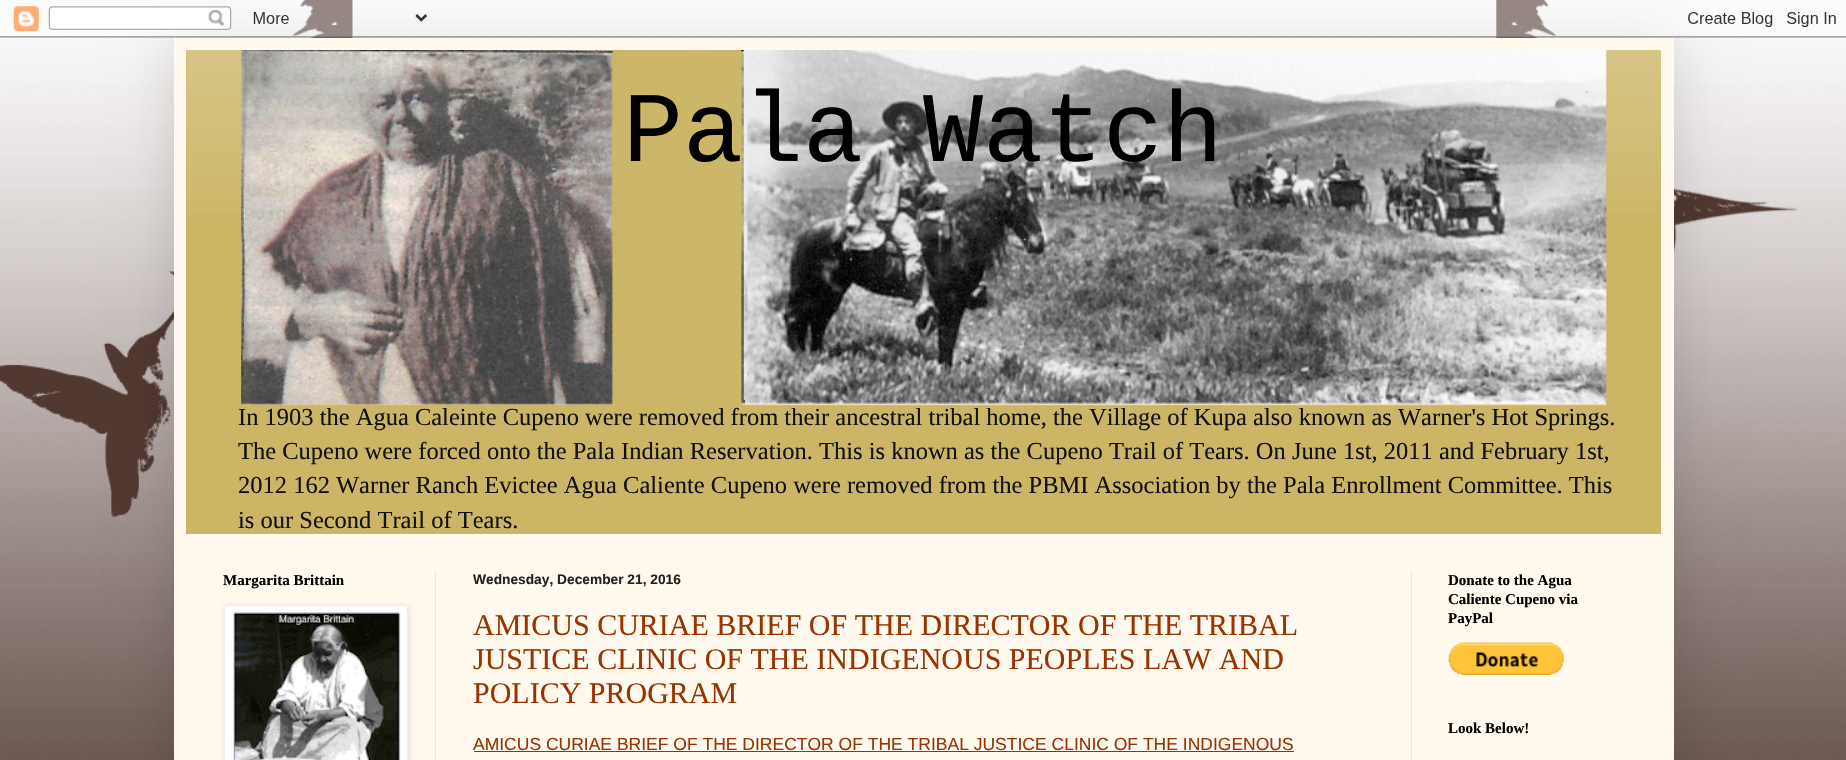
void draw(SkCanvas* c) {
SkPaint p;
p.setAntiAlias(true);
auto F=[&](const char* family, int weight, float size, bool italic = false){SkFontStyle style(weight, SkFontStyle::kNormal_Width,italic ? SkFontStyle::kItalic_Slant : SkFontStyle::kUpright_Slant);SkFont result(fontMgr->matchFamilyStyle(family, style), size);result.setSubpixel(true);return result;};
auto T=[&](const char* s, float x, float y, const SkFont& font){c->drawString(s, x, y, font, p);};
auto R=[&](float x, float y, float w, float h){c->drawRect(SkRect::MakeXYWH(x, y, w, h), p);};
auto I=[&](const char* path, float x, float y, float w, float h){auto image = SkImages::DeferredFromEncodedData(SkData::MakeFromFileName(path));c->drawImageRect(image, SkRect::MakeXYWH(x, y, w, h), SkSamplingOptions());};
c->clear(0xff513831);
I("1.png",0,0,1846,760);
p.setColor(0x26000000);
p.setMaskFilter(SkMaskFilter::MakeBlur(kNormal_SkBlurStyle, 25));
c->drawRect(SkRect::MakeXYWH(174,38,1500,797),p);
p.setMaskFilter(nullptr);
I("2.png",0,0,1846,38);
p.setColor(0xfffff9ee);
R(174,38,1500,722);
p.setColor(0xffccb666);
R(186,50,1475,484);
I("3.png",186,50,1475,163);
I("4.png",241,50,1366,356);
auto f1 = F("Liberation Mono",400,100);
p.setColor(0xff000000);
T("Pala Watch",623,161,f1);
auto f2 = F("Liberation Serif",400,24.5);
p.setColor(0xff111111);
T("In 1903 the Agua Caleinte Cupeno were removed from their ancestral tribal home, the Village of Kupa also known as Warner's Hot Springs.",238,425,f2);
T("The Cupeno were forced onto the Pala Indian Reservation. This is known as the Cupeno Trail of Tears. On June 1st, 2011 and February 1st,",238,459,f2);
T("2012 162 Warner Ranch Evictee Agua Caliente Cupeno were removed from the PBMI Association by the Pala Enrollment Committee. This",238,493,f2);
T("is our Second Trail of Tears.",238,528,f2);
p.setColor(0xffeee5dd);
R(435,571,1,189);
R(1411,571,1,189);
auto f3 = F("Liberation Serif",700,15);
p.setColor(0xff000000);
T("Margarita Brittain",223,585,f3);
p.setColor(0x1a000000);
p.setMaskFilter(SkMaskFilter::MakeBlur(kNormal_SkBlurStyle, 3));
c->drawRect(SkRect::MakeXYWH(225,606,184,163),p);
p.setMaskFilter(nullptr);
p.setColor(0xffffffff);
c->drawRect(SkRect::MakeXYWH(224.5,605.5,183,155),p);
p.setStroke(true);
p.setStrokeWidth(1);
p.setColor(0xffeeeeee);
c->drawRect(SkRect::MakeXYWH(224.5,605.5,183,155),p);
I("5.png",233,612,168,148);
auto f4 = F("Liberation Sans",700,13.75);
p.setStroke(false);
p.setColor(0xff222222);
T("Wednesday, December 21, 2016",473,584,f4);
auto f5 = F("Liberation Serif",400,30);
p.setColor(0xff993300);
T("AMICUS CURIAE BRIEF OF THE DIRECTOR OF THE TRIBAL",473,635,f5);
T("JUSTICE CLINIC OF THE INDIGENOUS PEOPLES LAW AND",473,669,f5);
T("POLICY PROGRAM",473,703,f5);
auto f6 = F("Liberation Sans",400,17.5);
T("AMICUS CURIAE BRIEF OF THE DIRECTOR OF THE TRIBAL JUSTICE CLINIC OF THE INDIGENOUS",473,750,f6);
R(474,751,820,1);
p.setColor(0xff000000);
T("Donate to the Agua",1448,585,f3);
T("Caliente Cupeno via",1448,604,f3);
T("PayPal",1448,623,f3);
I("6.png",1448,642,116,33);
T("Look Below!",1448,733,f3);
}
